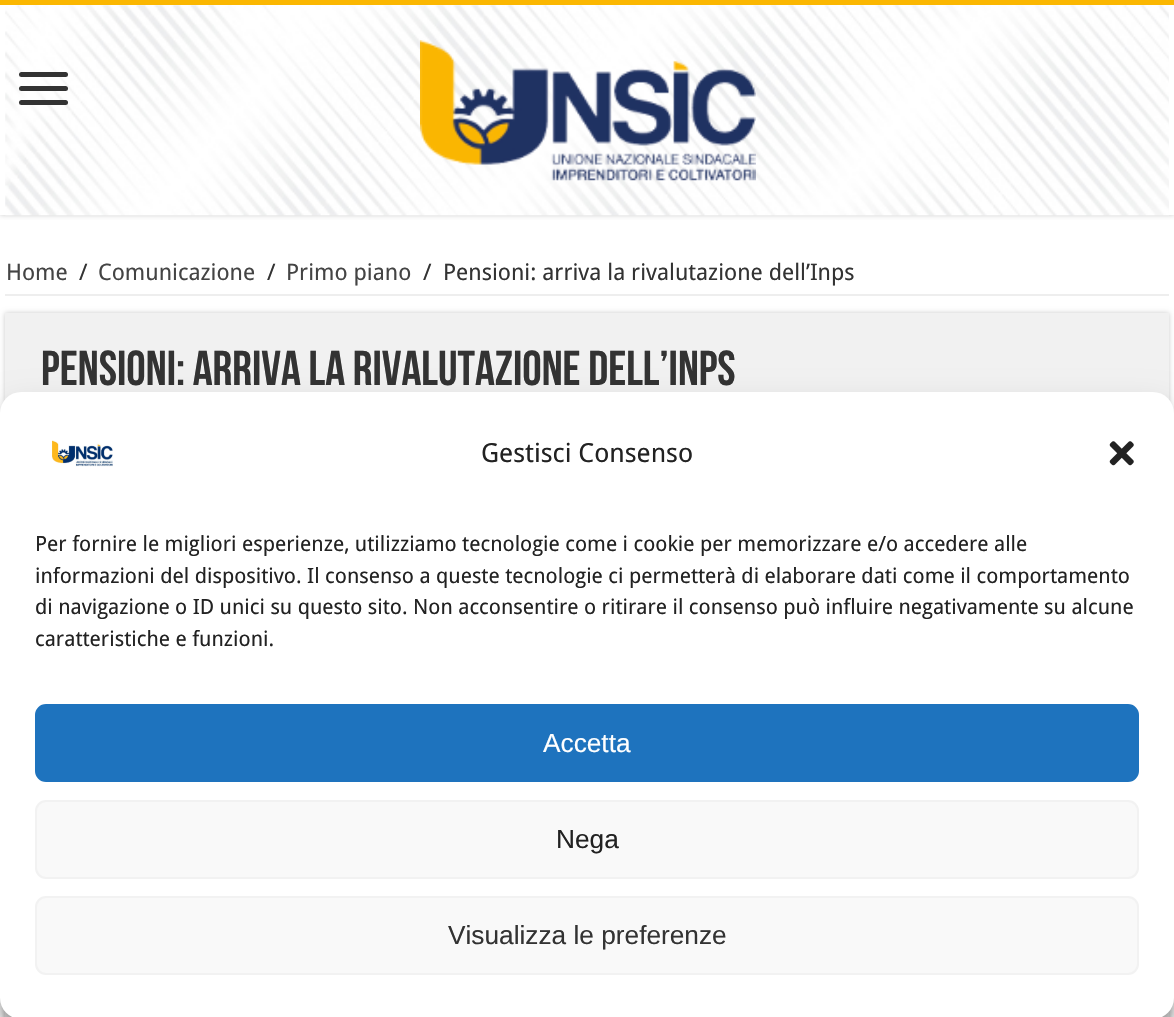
void draw(SkCanvas* c) {
SkPaint p;
p.setAntiAlias(true);
auto F=[&](const char* family, int weight, float size, bool italic = false){SkFontStyle style(weight, SkFontStyle::kNormal_Width,italic ? SkFontStyle::kItalic_Slant : SkFontStyle::kUpright_Slant);SkFont result(fontMgr->matchFamilyStyle(family, style), size);result.setSubpixel(true);return result;};
auto T=[&](const char* s, float x, float y, const SkFont& font){c->drawString(s, x, y, font, p);};
auto R=[&](float x, float y, float w, float h){c->drawRect(SkRect::MakeXYWH(x, y, w, h), p);};
auto Q=[&](float x, float y, float w, float h, float radius){c->drawRoundRect(SkRect::MakeXYWH(x, y, w, h), radius, radius, p);};
auto I=[&](const char* path, float x, float y, float w, float h){auto image = SkImages::DeferredFromEncodedData(SkData::MakeFromFileName(path));c->drawImageRect(image, SkRect::MakeXYWH(x, y, w, h), SkSamplingOptions());};
c->clear(0xffffffff);
c->save();
c->clipRect(SkRect::MakeXYWH(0,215,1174,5));
p.setColor(0xffcacaca);
p.setMaskFilter(SkMaskFilter::MakeBlur(kNormal_SkBlurStyle, 2.5));
c->drawRect(SkRect::MakeXYWH(0,0,1174,215),p);
p.setMaskFilter(nullptr);
c->restore();
p.setColor(0xfffbb701);
R(0,0,1174,5);
I("1.png",5,5,1164,211);
p.setColor(0xff333333);
Q(19,72,49,5,2.5);
Q(19,86,49,5,2.5);
Q(19,100,49,5,2.5);
I("2.png",420,40,336,141);
p.setColor(0xffeeeeee);
R(5,294,1164,2);
auto f1 = F("Droid Sans",400,22.75);
p.setColor(0xff444444);
T("Home",6,280,f1);
p.setColor(0xff333333);
T("/",79,280,f1);
p.setColor(0xff444444);
T("Comunicazione",98,280,f1);
p.setColor(0xff333333);
T("/",267,280,f1);
p.setColor(0xff444444);
T("Primo piano",286,280,f1);
p.setColor(0xff333333);
T("/",423,280,f1);
T("Pensioni: arriva la rivalutazione dell’Inps",443,280,f1);
p.setColor(0xffcacaca);
p.setMaskFilter(SkMaskFilter::MakeBlur(kNormal_SkBlurStyle, 2.5));
c->drawRect(SkRect::MakeXYWH(5,313,1164,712),p);
p.setMaskFilter(nullptr);
p.setColor(0xfff1f1f1);
R(5,313,1164,704);
auto f2 = F("Bebas Neue",700,49);
p.setColor(0xff333333);
T("Pensioni: arriva la rivalutazione dell’Inps",41,385,f2);
p.setColor(0x3b000000);
p.setMaskFilter(SkMaskFilter::MakeBlur(kNormal_SkBlurStyle, 5));
c->drawRoundRect(SkRect::MakeXYWH(0,403,1174,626),21,21,p);
p.setMaskFilter(nullptr);
p.setColor(0x30000000);
p.setMaskFilter(SkMaskFilter::MakeBlur(kNormal_SkBlurStyle, 17.5));
c->drawRoundRect(SkRect::MakeXYWH(0,410,1174,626),21,21,p);
p.setMaskFilter(nullptr);
p.setColor(0xffffffff);
Q(0,392,1174,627,21);
I("3.png",52,440,61,27);
auto f3 = F("Droid Sans",400,26.25);
p.setColor(0xff222222);
T("Gestisci Consenso",481,462,f3);
I("4.png",1109,441,25,25);
auto f4 = F("Droid Sans",400,21);
T("Per fornire le migliori esperienze, utilizziamo tecnologie come i cookie per memorizzare e/o accedere alle",35,551,f4);
T("informazioni del dispositivo. Il consenso a queste tecnologie ci permetterà di elaborare dati come il comportamento",35,583,f4);
T("di navigazione o ID unici su questo sito. Non acconsentire o ritirare il consenso può influire negativamente su alcune",35,614,f4);
T("caratteristiche e funzioni.",35,646,f4);
p.setColor(0xff1e73be);
c->drawRoundRect(SkRect::MakeXYWH(36,705,1102,76),10,10,p);
p.setStroke(true);
p.setStrokeWidth(2);
c->drawRoundRect(SkRect::MakeXYWH(36,705,1102,76),10,10,p);
auto f5 = F("Liberation Sans",400,26.25);
p.setStroke(false);
p.setColor(0xffffffff);
T("Accetta",543,752,f5);
p.setColor(0xfff9f9f9);
c->drawRoundRect(SkRect::MakeXYWH(36,801,1102,77),10,10,p);
p.setStroke(true);
p.setColor(0xfff2f2f2);
c->drawRoundRect(SkRect::MakeXYWH(36,801,1102,77),10,10,p);
p.setStroke(false);
p.setColor(0xff222222);
T("Nega",556,848,f5);
p.setColor(0xfff9f9f9);
c->drawRoundRect(SkRect::MakeXYWH(36,897,1102,77),10,10,p);
p.setStroke(true);
p.setColor(0xfff2f2f2);
c->drawRoundRect(SkRect::MakeXYWH(36,897,1102,77),10,10,p);
p.setStroke(false);
p.setColor(0xff333333);
T("Visualizza le preferenze",448,944,f5);
}
